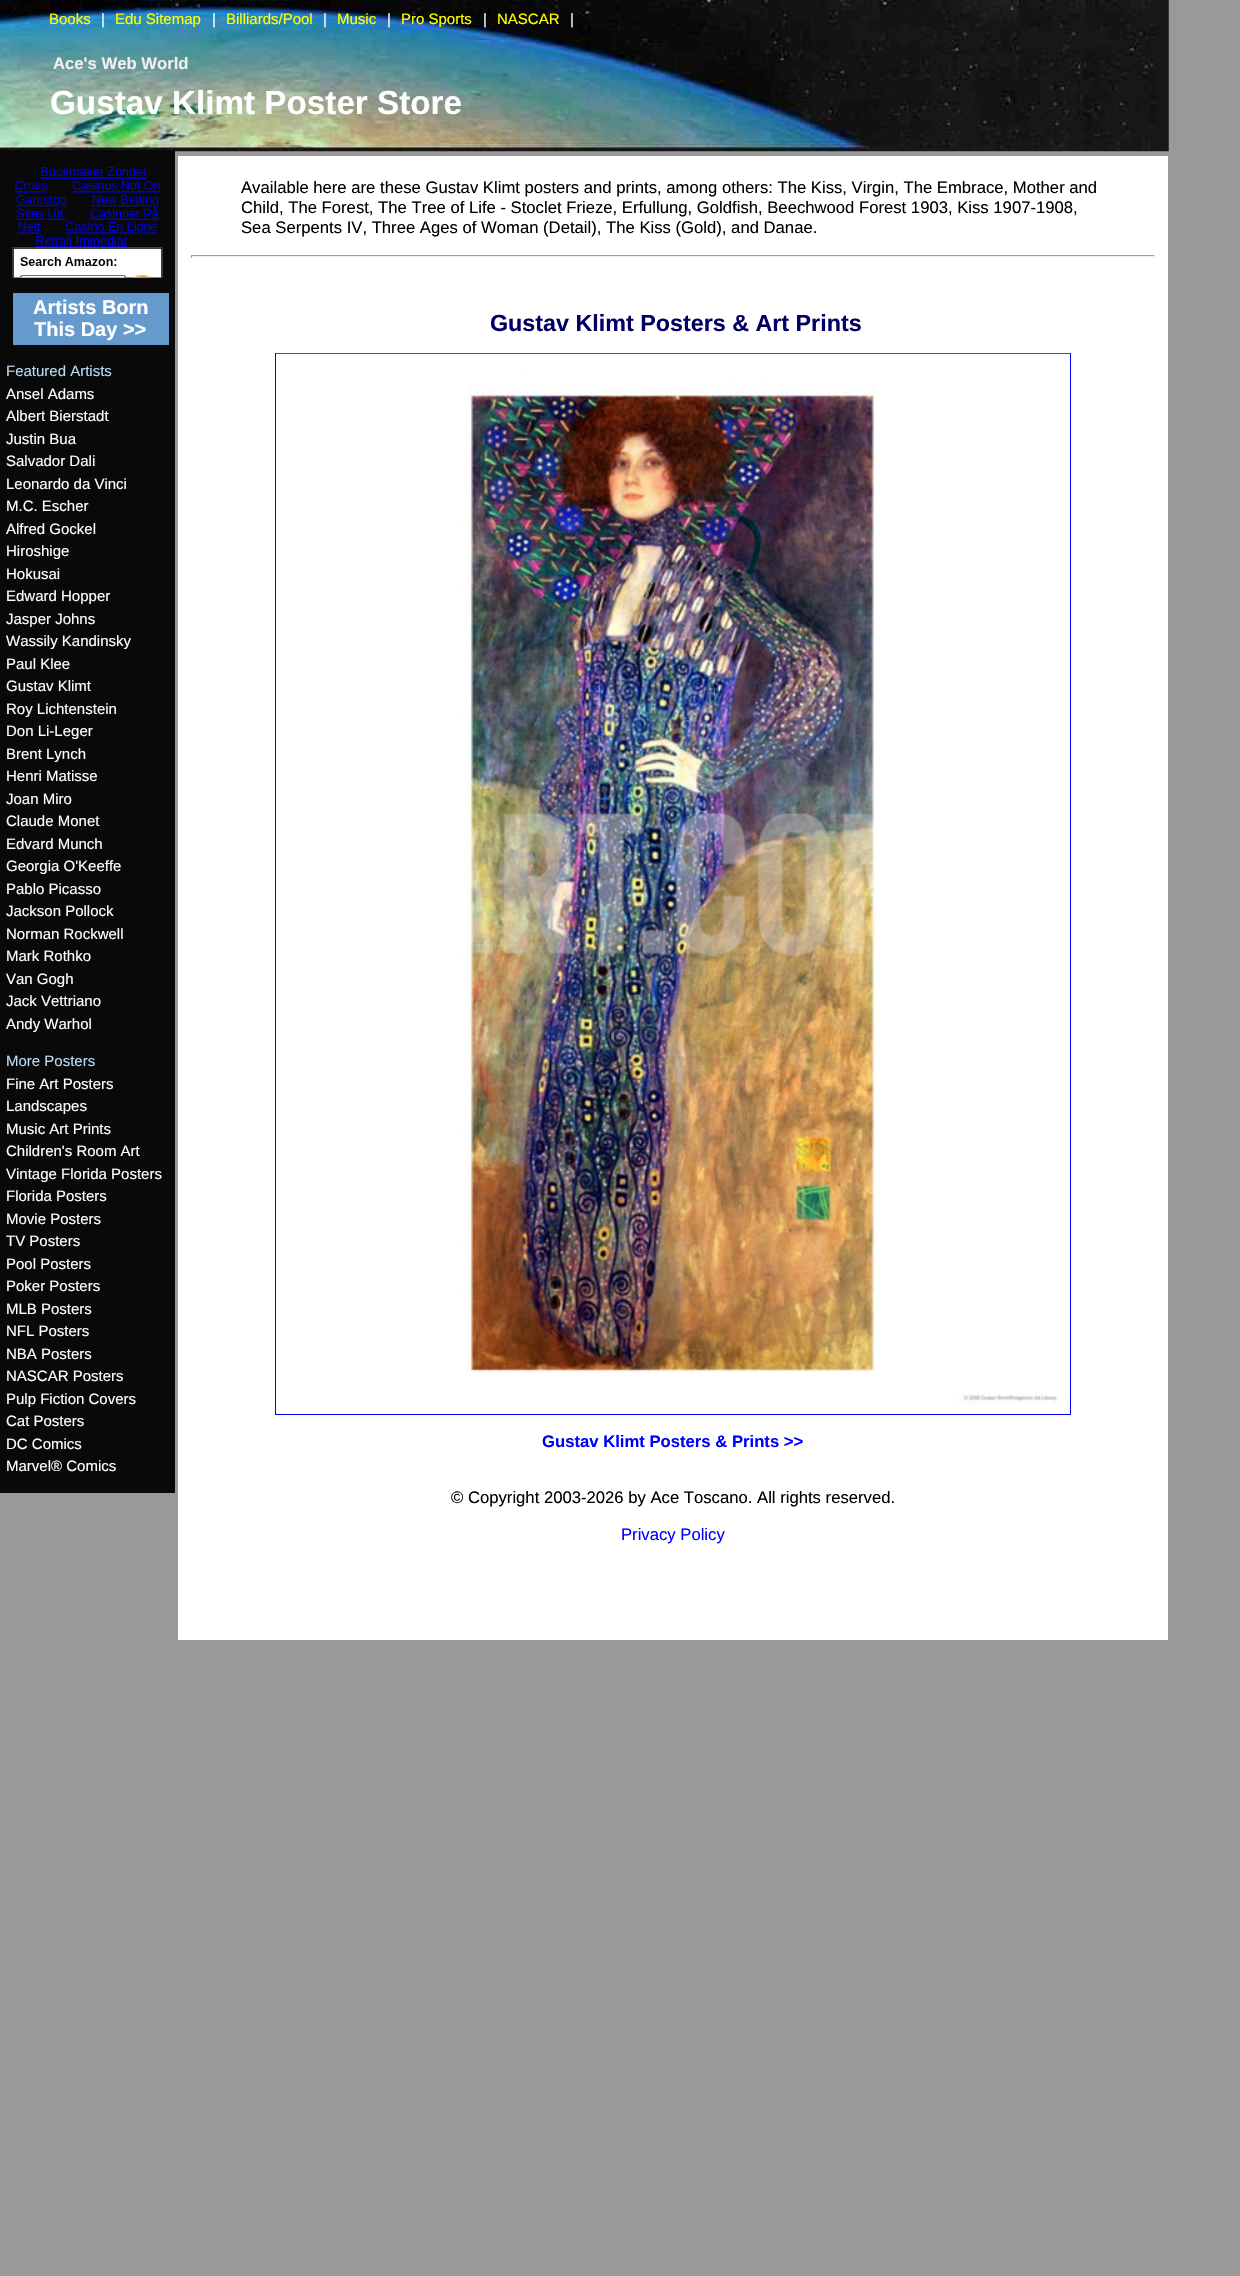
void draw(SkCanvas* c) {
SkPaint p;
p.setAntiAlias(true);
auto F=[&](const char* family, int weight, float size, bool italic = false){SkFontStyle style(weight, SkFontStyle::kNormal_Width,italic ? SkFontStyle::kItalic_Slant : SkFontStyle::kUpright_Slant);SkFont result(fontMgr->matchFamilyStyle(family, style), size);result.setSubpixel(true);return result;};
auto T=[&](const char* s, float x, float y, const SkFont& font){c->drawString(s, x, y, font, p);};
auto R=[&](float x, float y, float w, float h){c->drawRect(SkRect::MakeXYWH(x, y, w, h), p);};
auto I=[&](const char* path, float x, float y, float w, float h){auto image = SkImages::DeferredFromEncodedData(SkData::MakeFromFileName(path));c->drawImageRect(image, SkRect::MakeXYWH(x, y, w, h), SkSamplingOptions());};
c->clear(0xff999999);
I("1.png",0,0,1169,152);
auto f1 = F("Liberation Sans",400,15);
p.setColor(0xffffff00);
T("Books",49,24,f1);
p.setColor(0xffffffff);
T("|",101,24,f1);
p.setColor(0xffffff00);
T("Edu Sitemap",115,24,f1);
p.setColor(0xffffffff);
T("|",212,24,f1);
p.setColor(0xffffff00);
T("Billiards/Pool",226,24,f1);
p.setColor(0xffffffff);
T("|",323,24,f1);
p.setColor(0xffffff00);
T("Music",337,24,f1);
p.setColor(0xffffffff);
T("|",387,24,f1);
p.setColor(0xffffff00);
T("Pro Sports",401,24,f1);
p.setColor(0xffffffff);
T("|",483,24,f1);
p.setColor(0xffffff00);
T("NASCAR",497,24,f1);
p.setColor(0xffffffff);
T("|",570,24,f1);
auto f2 = F("Liberation Sans",700,16.67);
p.setColor(0xffefefef);
T("Ace's Web World",53,69,f2);
auto f3 = F("Liberation Sans",700,33.25);
p.setColor(0xffffffff);
T("Gustav Klimt Poster Store",50,114,f3);
p.setColor(0xff090909);
R(0,150,175,1343);
I("2.png",12,167,151,111);
p.setColor(0xff6699cc);
R(13,293,156,52);
auto f4 = F("Liberation Sans",700,20);
p.setColor(0xffffffff);
T("Artists Born",33,314,f4);
T("This Day >>",34,336,f4);
p.setColor(0xffb9dcf7);
T("Featured Artists",6,376,f1);
p.setColor(0xffffffff);
T("Ansel Adams",6,399,f1);
T("Albert Bierstadt",6,421,f1);
T("Justin Bua",6,444,f1);
T("Salvador Dali",6,466,f1);
T("Leonardo da Vinci",6,489,f1);
T("M.C. Escher",6,511,f1);
T("Alfred Gockel",6,534,f1);
T("Hiroshige",6,556,f1);
T("Hokusai",6,579,f1);
T("Edward Hopper",6,601,f1);
T("Jasper Johns",6,624,f1);
T("Wassily Kandinsky",6,646,f1);
T("Paul Klee",6,669,f1);
T("Gustav Klimt",6,691,f1);
T("Roy Lichtenstein",6,714,f1);
T("Don Li-Leger",6,736,f1);
T("Brent Lynch",6,759,f1);
T("Henri Matisse",6,781,f1);
T("Joan Miro",6,804,f1);
T("Claude Monet",6,826,f1);
T("Edvard Munch",6,849,f1);
T("Georgia O'Keeffe",6,871,f1);
T("Pablo Picasso",6,894,f1);
T("Jackson Pollock",6,916,f1);
T("Norman Rockwell",6,939,f1);
T("Mark Rothko",6,961,f1);
T("Van Gogh",6,984,f1);
T("Jack Vettriano",6,1006,f1);
T("Andy Warhol",6,1029,f1);
p.setColor(0xffb9dcf7);
T("More Posters",6,1066,f1);
p.setColor(0xffffffff);
T("Fine Art Posters",6,1089,f1);
T("Landscapes",6,1111,f1);
T("Music Art Prints",6,1134,f1);
T("Children's Room Art",6,1156,f1);
T("Vintage Florida Posters",6,1179,f1);
T("Florida Posters",6,1201,f1);
T("Movie Posters",6,1224,f1);
T("TV Posters",6,1246,f1);
T("Pool Posters",6,1269,f1);
T("Poker Posters",6,1291,f1);
T("MLB Posters",6,1314,f1);
T("NFL Posters",6,1336,f1);
T("NBA Posters",6,1359,f1);
T("NASCAR Posters",6,1381,f1);
T("Pulp Fiction Covers",6,1404,f1);
T("Cat Posters",6,1426,f1);
T("DC Comics",6,1449,f1);
T("Marvel® Comics",6,1471,f1);
R(178,156,990,1484);
auto f5 = F("Liberation Sans",400,16.67);
p.setColor(0xff000000);
T("Available here are these Gustav Klimt posters and prints, among others: The Kiss, Virgin, The Embrace, Mother and",241,193,f5);
T("Child, The Forest, The Tree of Life - Stoclet Frieze, Erfullung, Goldfish, Beechwood Forest 1903, Kiss 1907-1908,",241,213,f5);
T("Sea Serpents IV, Three Ages of Woman (Detail), The Kiss (Gold), and Danae.",241,233,f5);
p.setColor(0xff9f9f9f);
R(191,255,964,1);
p.setColor(0xffeeeeee);
R(1154,255,1,3);
R(191,256,964,1);
p.setColor(0xff9f9f9f);
R(191,255,1,3);
auto f6 = F("Liberation Sans",700,23.3);
p.setColor(0xff000064);
T("Gustav Klimt Posters & Art Prints",490,331,f6);
p.setStroke(true);
p.setStrokeWidth(1);
p.setColor(0xff0000ff);
c->drawRect(SkRect::MakeXYWH(275.5,353.5,795,1061),p);
I("3.png",276,353,794,1053);
p.setStroke(false);
T("Gustav Klimt Posters & Prints >>",542,1447,f2);
p.setColor(0xff000000);
T("© Copyright 2003-2026 by Ace Toscano. All rights reserved.",451,1503,f5);
p.setColor(0xff0000ff);
T("Privacy Policy",621,1540,f5);
}
